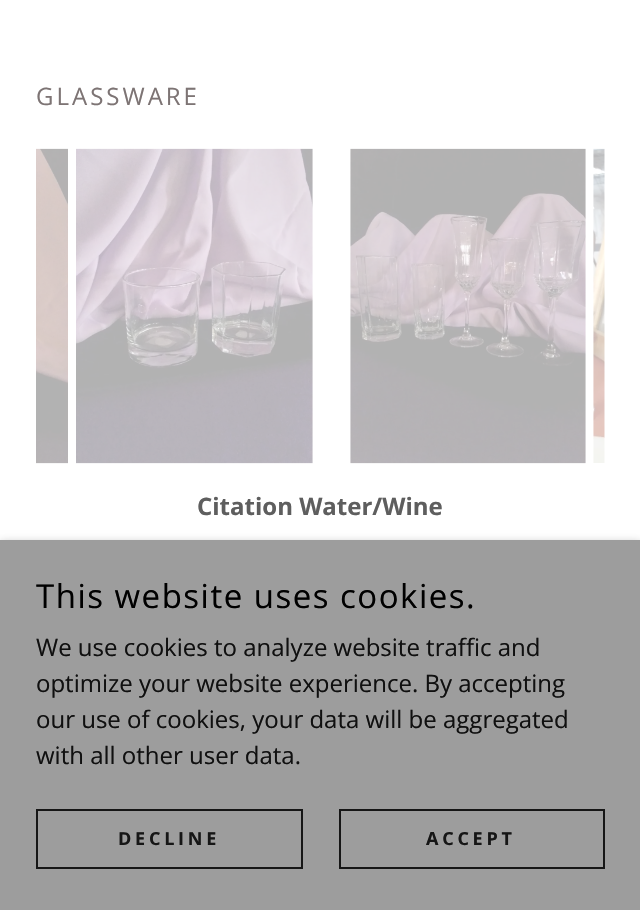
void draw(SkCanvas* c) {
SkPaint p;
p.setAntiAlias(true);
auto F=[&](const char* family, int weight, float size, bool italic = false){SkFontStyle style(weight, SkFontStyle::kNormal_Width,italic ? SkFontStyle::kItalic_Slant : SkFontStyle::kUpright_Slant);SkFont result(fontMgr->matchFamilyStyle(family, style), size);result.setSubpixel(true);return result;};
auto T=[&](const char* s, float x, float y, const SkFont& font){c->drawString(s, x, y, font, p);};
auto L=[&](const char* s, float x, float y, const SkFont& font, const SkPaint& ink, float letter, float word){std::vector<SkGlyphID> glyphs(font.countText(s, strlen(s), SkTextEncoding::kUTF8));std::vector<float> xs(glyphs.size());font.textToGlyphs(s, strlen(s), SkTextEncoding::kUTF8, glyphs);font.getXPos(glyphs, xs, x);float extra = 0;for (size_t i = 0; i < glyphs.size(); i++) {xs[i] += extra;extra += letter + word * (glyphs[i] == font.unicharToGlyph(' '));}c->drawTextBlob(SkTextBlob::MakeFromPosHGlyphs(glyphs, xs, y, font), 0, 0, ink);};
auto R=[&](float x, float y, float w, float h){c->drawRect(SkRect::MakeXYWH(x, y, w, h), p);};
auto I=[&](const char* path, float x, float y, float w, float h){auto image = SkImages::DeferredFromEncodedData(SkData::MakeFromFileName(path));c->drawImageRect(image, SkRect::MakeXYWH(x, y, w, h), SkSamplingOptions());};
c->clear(0xffffffff);
auto f1 = F("Open Sans",400,24);
p.setColor(0xff7d7474);
L("GLASSWARE",36,105,f1,p,3,0);
I("1.png",36,148,32,316);
I("2.png",76,148,237,316);
I("3.png",350,148,236,316);
I("4.png",593,148,12,315);
auto f2 = F("Open Sans",700,24);
p.setColor(0xff5e5e5e);
T("Citation Water/Wine",197,515,f2);
p.setColor(0x4d000000);
p.setMaskFilter(SkMaskFilter::MakeBlur(kNormal_SkBlurStyle, 4.5));
c->drawRect(SkRect::MakeXYWH(0,543,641,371),p);
p.setMaskFilter(nullptr);
p.setColor(0xff9d9d9d);
R(0,540,640,370);
auto f3 = F("Open Sans",400,33);
p.setColor(0xff000000);
L("This website uses cookies.",36,608,f3,p,1.5,0);
p.setColor(0xff101010);
T("We use cookies to analyze website traffic and",36,656,f1);
T("optimize your website experience. By accepting",36,692,f1);
T("our use of cookies, your data will be aggregated",36,728,f1);
T("with all other user data.",36,764,f1);
p.setStroke(true);
p.setStrokeWidth(2);
p.setColor(0xff161616);
c->drawRect(SkRect::MakeXYWH(37,810,265,58),p);
auto f4 = F("Open Sans",700,18);
p.setStroke(false);
L("DECLINE",118,845,f4,p,3.75,0);
p.setStroke(true);
c->drawRect(SkRect::MakeXYWH(340,810,264,58),p);
p.setStroke(false);
L("ACCEPT",426,845,f4,p,3.75,0);
}
